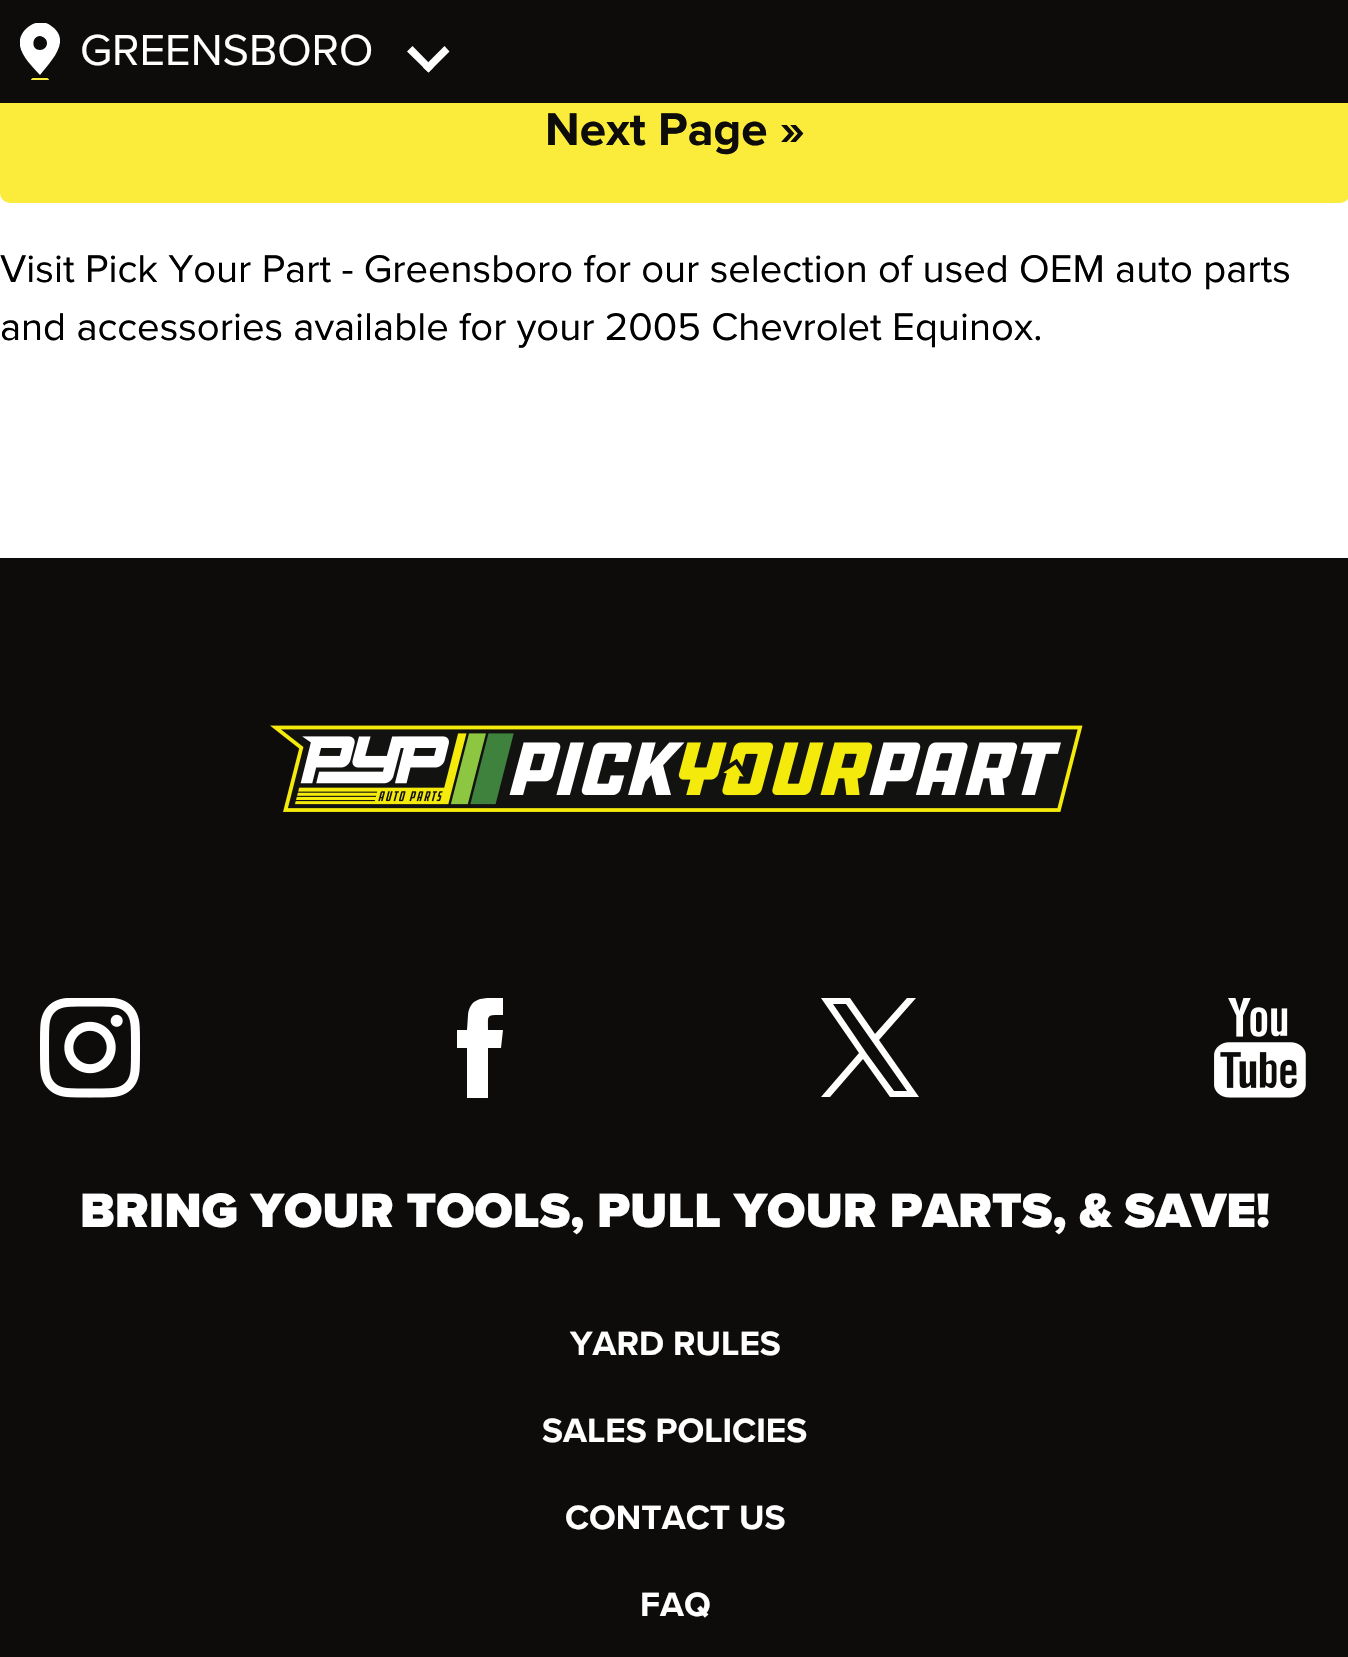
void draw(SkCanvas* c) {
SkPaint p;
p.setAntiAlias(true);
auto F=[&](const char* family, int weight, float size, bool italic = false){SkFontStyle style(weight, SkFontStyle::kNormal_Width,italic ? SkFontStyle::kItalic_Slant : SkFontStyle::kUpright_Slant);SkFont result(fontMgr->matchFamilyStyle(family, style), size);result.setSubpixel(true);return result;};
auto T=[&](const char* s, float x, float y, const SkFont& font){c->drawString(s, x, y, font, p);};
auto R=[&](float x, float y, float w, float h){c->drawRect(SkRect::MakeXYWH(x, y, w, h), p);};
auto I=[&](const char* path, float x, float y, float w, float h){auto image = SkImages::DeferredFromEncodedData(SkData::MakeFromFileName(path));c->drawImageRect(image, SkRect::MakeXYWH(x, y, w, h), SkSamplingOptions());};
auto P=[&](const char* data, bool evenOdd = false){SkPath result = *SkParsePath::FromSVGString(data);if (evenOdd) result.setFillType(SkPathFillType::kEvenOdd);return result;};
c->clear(0xffffffff);
p.setColor(0xfffbeb3a);
c->drawRoundRect(SkRect::MakeXYWH(1.5,59.5,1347,142),8.5,8.5,p);
p.setStroke(true);
p.setStrokeWidth(3);
c->drawRoundRect(SkRect::MakeXYWH(1.5,59.5,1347,142),8.5,8.5,p);
p.setStroke(false);
p.setColor(0xff0e0c0a);
R(0,0,1348,103);
c->save();
c->clipRect(SkRect::MakeXYWH(20,23,40,57));
p.setColor(0xffffffff);
c->drawPath(P("M50 25c-14-9-33 6-30 21c2 11 13 21 20 29c11-14 33-35 10-50zm-10 25c-11 0-7-18 3-13c2 1 4 3 4 6c0 4-3 7-7 7z"),p);
c->restore();
p.setColor(0xfffbeb3a);
c->drawPath(P("M33 78h14c1 0 2 1 2 2h-18c0-1 1-2 2-2z"),p);
auto f1 = F("Proxima Nova",400,45);
p.setColor(0xffffffff);
T("GREENSBORO",80,65,f1);
c->drawPath(P("M449.5 51.5l-21 21l-5.5-5l21.5-21.5z"),p);
c->drawPath(P("M433.5 67.5l-5 5l-21.5-21l5.5-5.5z"),p);
auto f2 = F("Proxima Nova",700,47.5);
p.setColor(0xff0e0c0a);
T("Next Page »",545,145,f2);
auto f3 = F("Proxima Nova",400,40);
p.setColor(0xff000000);
T("Visit Pick Your Part - Greensboro for our selection of used OEM auto parts",0,282,f3);
T("and accessories available for your 2005 Chevrolet Equinox.",0,340,f3);
p.setColor(0xff0e0c0a);
R(0,558,1348,1099);
I("1.png",270,725,813,87);
I("2.png",40,998,100,100);
c->save();
c->clipRect(SkRect::MakeXYWH(430,998,100,100));
p.setColor(0xffffffff);
c->drawPath(P("M488 1030c0-16-2-15 15-15v-17c-15 0-33-3-35 17l-1 15h-10v18h10v50h21v-50h13l2-18z"),p);
c->restore();
c->drawPath(P("M879 1040l37-42h-9l-32 36l-25-36h-29l38 55l-38 44h9l33-38l27 38h29zm-12 14l-34-50h13l61 87h-13z"),p);
I("3.png",1214,998,92,100);
auto f4 = F("Proxima Nova",900,50);
T("BRING YOUR TOOLS, PULL YOUR PARTS, & SAVE!",80,1227,f4);
auto f5 = F("Proxima Nova",700,35);
T("YARD RULES",570,1355,f5);
T("SALES POLICIES",542,1442,f5);
T("CONTACT US",565,1529,f5);
T("FAQ",640,1616,f5);
}
